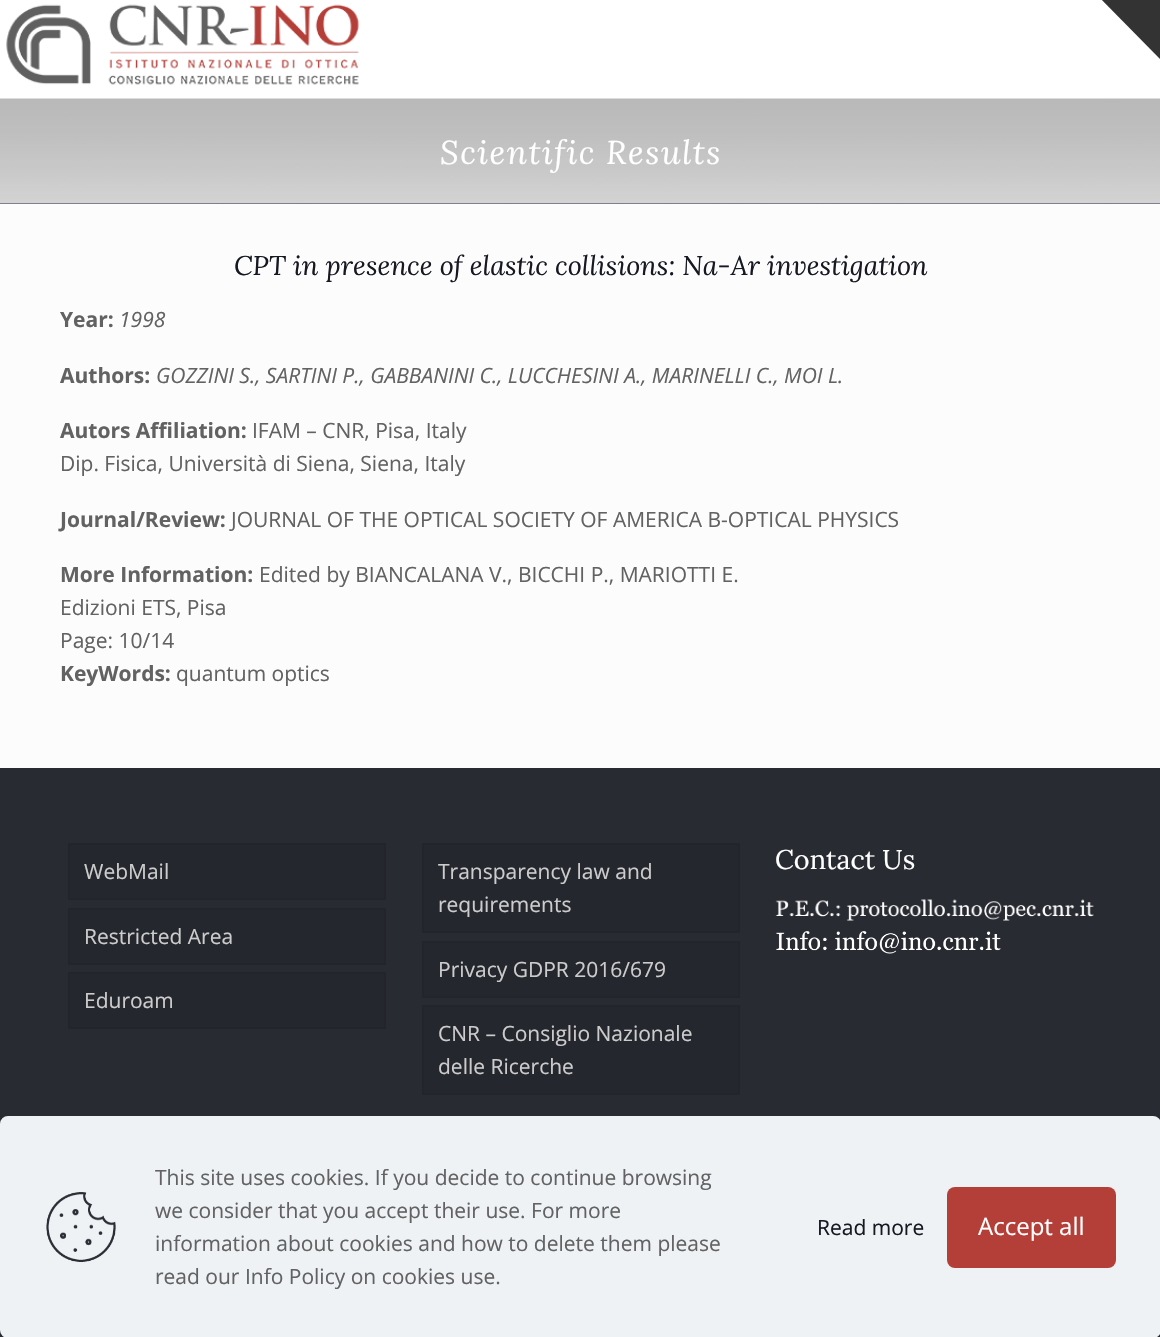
void draw(SkCanvas* c) {
SkPaint p;
p.setAntiAlias(true);
auto F=[&](const char* family, int weight, float size, bool italic = false){SkFontStyle style(weight, SkFontStyle::kNormal_Width,italic ? SkFontStyle::kItalic_Slant : SkFontStyle::kUpright_Slant);SkFont result(fontMgr->matchFamilyStyle(family, style), size);result.setSubpixel(true);return result;};
auto T=[&](const char* s, float x, float y, const SkFont& font){c->drawString(s, x, y, font, p);};
auto L=[&](const char* s, float x, float y, const SkFont& font, const SkPaint& ink, float letter, float word){std::vector<SkGlyphID> glyphs(font.countText(s, strlen(s), SkTextEncoding::kUTF8));std::vector<float> xs(glyphs.size());font.textToGlyphs(s, strlen(s), SkTextEncoding::kUTF8, glyphs);font.getXPos(glyphs, xs, x);float extra = 0;for (size_t i = 0; i < glyphs.size(); i++) {xs[i] += extra;extra += letter + word * (glyphs[i] == font.unicharToGlyph(' '));}c->drawTextBlob(SkTextBlob::MakeFromPosHGlyphs(glyphs, xs, y, font), 0, 0, ink);};
auto R=[&](float x, float y, float w, float h){c->drawRect(SkRect::MakeXYWH(x, y, w, h), p);};
auto Q=[&](float x, float y, float w, float h, float radius){c->drawRoundRect(SkRect::MakeXYWH(x, y, w, h), radius, radius, p);};
auto I=[&](const char* path, float x, float y, float w, float h){auto image = SkImages::DeferredFromEncodedData(SkData::MakeFromFileName(path));c->drawImageRect(image, SkRect::MakeXYWH(x, y, w, h), SkSamplingOptions());};
auto P=[&](const char* data, bool evenOdd = false){SkPath result = *SkParsePath::FromSVGString(data);if (evenOdd) result.setFillType(SkPathFillType::kEvenOdd);return result;};
c->clear(0xfffcfcfc);
p.setColor(0xffffffff);
R(0,0,1160,99);
p.setColor(0xff333333);
c->drawPath(P("M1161-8v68l-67-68z"),p);
I("1.png",6,4,353,81);
p.setColor(0xff2a2b3f);
R(0,203,1160,1);
I("2.png",0,98,1160,106);
auto f1 = F("Lora",400,33,true);
p.setColor(0xffffffff);
L("Scientific Results",440,164,f1,p,1.5,0);
auto f2 = F("Lora",400,27,true);
p.setColor(0xff161922);
T("CPT in presence of elastic collisions: Na-Ar investigation",234,275,f2);
auto f3 = F("Open Sans",700,21);
p.setColor(0xff626262);
T("Year:",60,327,f3);
auto f4 = F("Open Sans",400,21,true);
T("1998",119,327,f4);
T("Authors:",60,383,f3);
T("GOZZINI S., SARTINI P., GABBANINI C., LUCCHESINI A., MARINELLI C., MOI L.",156,383,f4);
T("Autors Affiliation:",60,438,f3);
auto f5 = F("Open Sans",400,21);
T("IFAM – CNR, Pisa, Italy",252,438,f5);
T("Dip. Fisica, Università di Siena, Siena, Italy",60,471,f5);
T("Journal/Review:",60,527,f3);
T("JOURNAL OF THE OPTICAL SOCIETY OF AMERICA B-OPTICAL PHYSICS",231,527,f5);
T("More Information:",60,582,f3);
T("Edited by BIANCALANA V., BICCHI P., MARIOTTI E.",259,582,f5);
T("Edizioni ETS, Pisa",60,615,f5);
T("Page: 10/14",60,648,f5);
T("KeyWords:",60,681,f3);
T("quantum optics",176,681,f5);
p.setColor(0xff292b33);
R(0,768,1160,569);
auto f6 = F("Lora",400,27);
p.setColor(0xffffffff);
T("Contact Us",775,869,f6);
I("3.png",775,899,319,22);
I("4.png",776,931,225,23);
p.setColor(0xff25272e);
c->drawRect(SkRect::MakeXYWH(69,844,316,55),p);
p.setStroke(true);
p.setStrokeWidth(2);
p.setColor(0xff24252c);
c->drawRect(SkRect::MakeXYWH(69,844,316,55),p);
p.setStroke(false);
p.setColor(0xffcccccc);
T("WebMail",84,879,f5);
p.setColor(0xff25272e);
c->drawRect(SkRect::MakeXYWH(69,909,316,55),p);
p.setStroke(true);
p.setColor(0xff24252c);
c->drawRect(SkRect::MakeXYWH(69,909,316,55),p);
p.setStroke(false);
p.setColor(0xffcccccc);
T("Restricted Area",84,944,f5);
p.setColor(0xff25272e);
c->drawRect(SkRect::MakeXYWH(69,973,316,55),p);
p.setStroke(true);
p.setColor(0xff24252c);
c->drawRect(SkRect::MakeXYWH(69,973,316,55),p);
p.setStroke(false);
p.setColor(0xffcccccc);
T("Eduroam",84,1008,f5);
p.setColor(0xff25272e);
c->drawRect(SkRect::MakeXYWH(423,844,316,88),p);
p.setStroke(true);
p.setColor(0xff24252c);
c->drawRect(SkRect::MakeXYWH(423,844,316,88),p);
p.setStroke(false);
p.setColor(0xffcccccc);
T("Transparency law and",438,879,f5);
T("requirements",438,912,f5);
p.setColor(0xff25272e);
c->drawRect(SkRect::MakeXYWH(423,942,316,55),p);
p.setStroke(true);
p.setColor(0xff24252c);
c->drawRect(SkRect::MakeXYWH(423,942,316,55),p);
p.setStroke(false);
p.setColor(0xffcccccc);
T("Privacy GDPR 2016/679",438,977,f5);
p.setColor(0xff25272e);
c->drawRect(SkRect::MakeXYWH(423,1006,316,88),p);
p.setStroke(true);
p.setColor(0xff24252c);
c->drawRect(SkRect::MakeXYWH(423,1006,316,88),p);
p.setStroke(false);
p.setColor(0xffcccccc);
T("CNR – Consiglio Nazionale",438,1041,f5);
T("delle Ricerche",438,1074,f5);
p.setColor(0xffeef2f5);
Q(0,1116,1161,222,8);
I("5.png",46,1192,70,70);
p.setColor(0xff626262);
T("This site uses cookies. If you decide to continue browsing",155,1185,f5);
T("we consider that you accept their use. For more",155,1218,f5);
T("information about cookies and how to delete them please",155,1251,f5);
T("read our Info Policy on cookies use.",155,1284,f5);
p.setColor(0xff161922);
T("Read more",817,1235,f5);
p.setColor(0xffb43f38);
Q(947,1187,169,81,8);
auto f7 = F("Open Sans",400,24);
p.setColor(0xffffffff);
T("Accept all",978,1235,f7);
}
